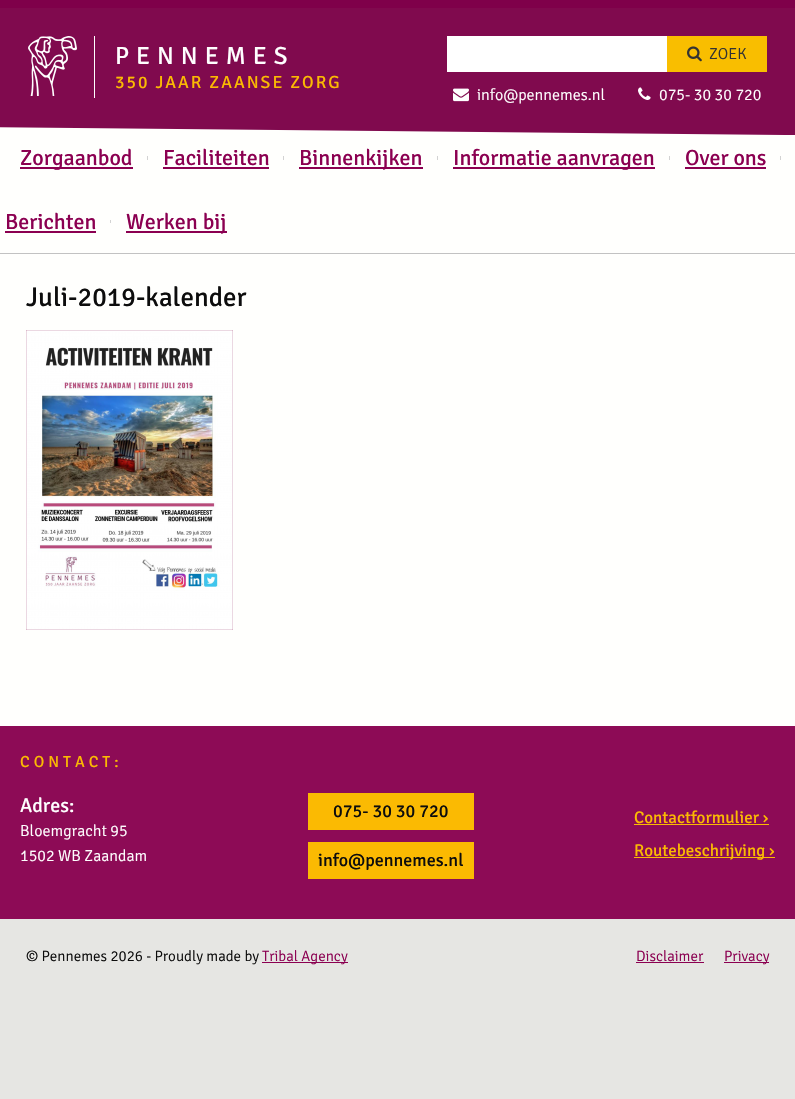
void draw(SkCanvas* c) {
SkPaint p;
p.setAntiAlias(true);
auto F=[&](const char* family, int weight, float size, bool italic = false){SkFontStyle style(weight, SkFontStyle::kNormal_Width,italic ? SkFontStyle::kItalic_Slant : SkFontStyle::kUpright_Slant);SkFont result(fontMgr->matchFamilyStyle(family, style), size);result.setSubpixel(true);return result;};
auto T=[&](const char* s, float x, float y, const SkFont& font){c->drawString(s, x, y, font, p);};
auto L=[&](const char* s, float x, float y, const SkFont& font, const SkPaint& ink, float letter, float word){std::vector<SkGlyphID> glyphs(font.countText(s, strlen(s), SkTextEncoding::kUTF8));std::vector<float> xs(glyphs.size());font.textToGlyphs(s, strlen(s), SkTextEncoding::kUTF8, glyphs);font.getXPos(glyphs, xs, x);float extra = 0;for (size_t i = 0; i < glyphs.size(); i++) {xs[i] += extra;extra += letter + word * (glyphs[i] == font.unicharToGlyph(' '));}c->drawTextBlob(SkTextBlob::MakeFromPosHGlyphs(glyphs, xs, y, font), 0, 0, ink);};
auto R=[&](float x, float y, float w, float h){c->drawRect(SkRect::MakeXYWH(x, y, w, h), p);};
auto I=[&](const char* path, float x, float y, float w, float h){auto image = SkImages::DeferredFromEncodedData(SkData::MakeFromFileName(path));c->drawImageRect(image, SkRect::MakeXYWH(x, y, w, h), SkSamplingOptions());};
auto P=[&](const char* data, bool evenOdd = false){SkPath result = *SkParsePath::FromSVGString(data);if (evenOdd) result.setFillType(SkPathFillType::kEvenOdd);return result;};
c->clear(0xffe6e6e3);
p.setColor(0xfffffffd);
R(0,254,795,472);
p.setColor(0xff800a4e);
R(0,8,795,117);
p.setColor(0xff7f004a);
R(0,0,795,8);
I("1.png",28,36,49,60);
p.setColor(0xffffffff);
R(94,36,1,62);
auto f1 = F("Signika",400,24.75);
L("PENNEMES",115,64,f1,p,7,0);
auto f2 = F("Signika",400,17.6);
p.setColor(0xfffbba02);
L("350 JAAR ZAANSE ZORG",115,88,f2,p,2,0);
p.setColor(0xffffffff);
R(447,36,220,36);
p.setColor(0xfff9be00);
R(667,36,100,36);
I("2.png",687,46,15,16);
auto f3 = F("Signika",300,16);
p.setColor(0xff333333);
T("ZOEK",709,59,f3);
I("3.png",453,88,16,14);
p.setColor(0xffffffff);
T("info@pennemes.nl",477,100,f3);
I("4.png",638,87,13,13);
T("075- 30 30 720",659,100,f3);
p.setColor(0xfffffffd);
R(0,127,795,126);
p.setColor(0xff800a4e);
c->drawPath(P("M-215 125h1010l-10 10z"),p);
R(785,125,10,10);
p.setColor(0xff8b0051);
R(20,167,113,2);
auto f4 = F("Signika",400,22);
T("Zorgaanbod",20,165,f4);
p.setColor(0xffd3d3d3);
R(147,156,1,4);
p.setColor(0xff8b0051);
T("Faciliteiten",163,165,f4);
R(163,167,106,2);
p.setColor(0xffd3d3d3);
R(283,156,1,4);
p.setColor(0xff8b0051);
R(299,167,124,2);
T("Binnenkijken",299,165,f4);
p.setColor(0xffd3d3d3);
R(437,156,1,4);
p.setColor(0xff8b0051);
R(453,167,202,2);
T("Informatie aanvragen",453,165,f4);
p.setColor(0xffd3d3d3);
R(669,156,1,4);
p.setColor(0xff8b0051);
T("Over ons",685,165,f4);
R(685,167,81,2);
p.setColor(0xffd3d3d3);
R(780,156,1,4);
p.setColor(0xff8b0051);
T("Berichten",5,229,f4);
R(5,231,91,2);
p.setColor(0xffd3d3d3);
R(110,220,1,3);
p.setColor(0xff8b0051);
R(126,231,101,2);
T("Werken bij",126,229,f4);
p.setColor(0xffc2c2c2);
R(0,253,795,1);
auto f5 = F("Signika",400,27);
p.setColor(0xff0d0d0d);
T("Juli-2019-kalender",26,306,f5);
I("5.png",26,330,207,300);
p.setColor(0xff8d0b56);
R(0,726,795,193);
auto f6 = F("Signika",400,16);
p.setColor(0xfffbba02);
L("CONTACT:",20,767,f6,p,4,0);
auto f7 = F("Signika",400,20);
p.setColor(0xffffffff);
T("Adres:",20,812,f7);
T("Bloemgracht 95",20,836,f3);
T("1502 WB Zaandam",20,861,f3);
p.setColor(0xfffbba02);
R(308,793,166,37);
auto f8 = F("Signika",400,18);
p.setColor(0xff0d0d0d);
T("075- 30 30 720",333,817,f8);
p.setColor(0xfffbba02);
R(308,842,166,37);
p.setColor(0xff0d0d0d);
T("info@pennemes.nl",318,866,f8);
auto f9 = F("Signika",400,17);
p.setColor(0xfffbba02);
T("Contactformulier ›",634,823,f9);
R(634,824,135,1);
R(634,857,141,1);
T("Routebeschrijving ›",634,856,f9);
auto f10 = F("Signika",300,15);
p.setColor(0xff0d0d0d);
T("© Pennemes 2026 - Proudly made by",26,961,f10);
p.setColor(0xff8b0051);
R(262,962,86,1);
T("Tribal Agency",262,961,f10);
T("Disclaimer",636,961,f10);
R(636,962,68,1);
R(724,962,45,1);
T("Privacy",724,961,f10);
}
